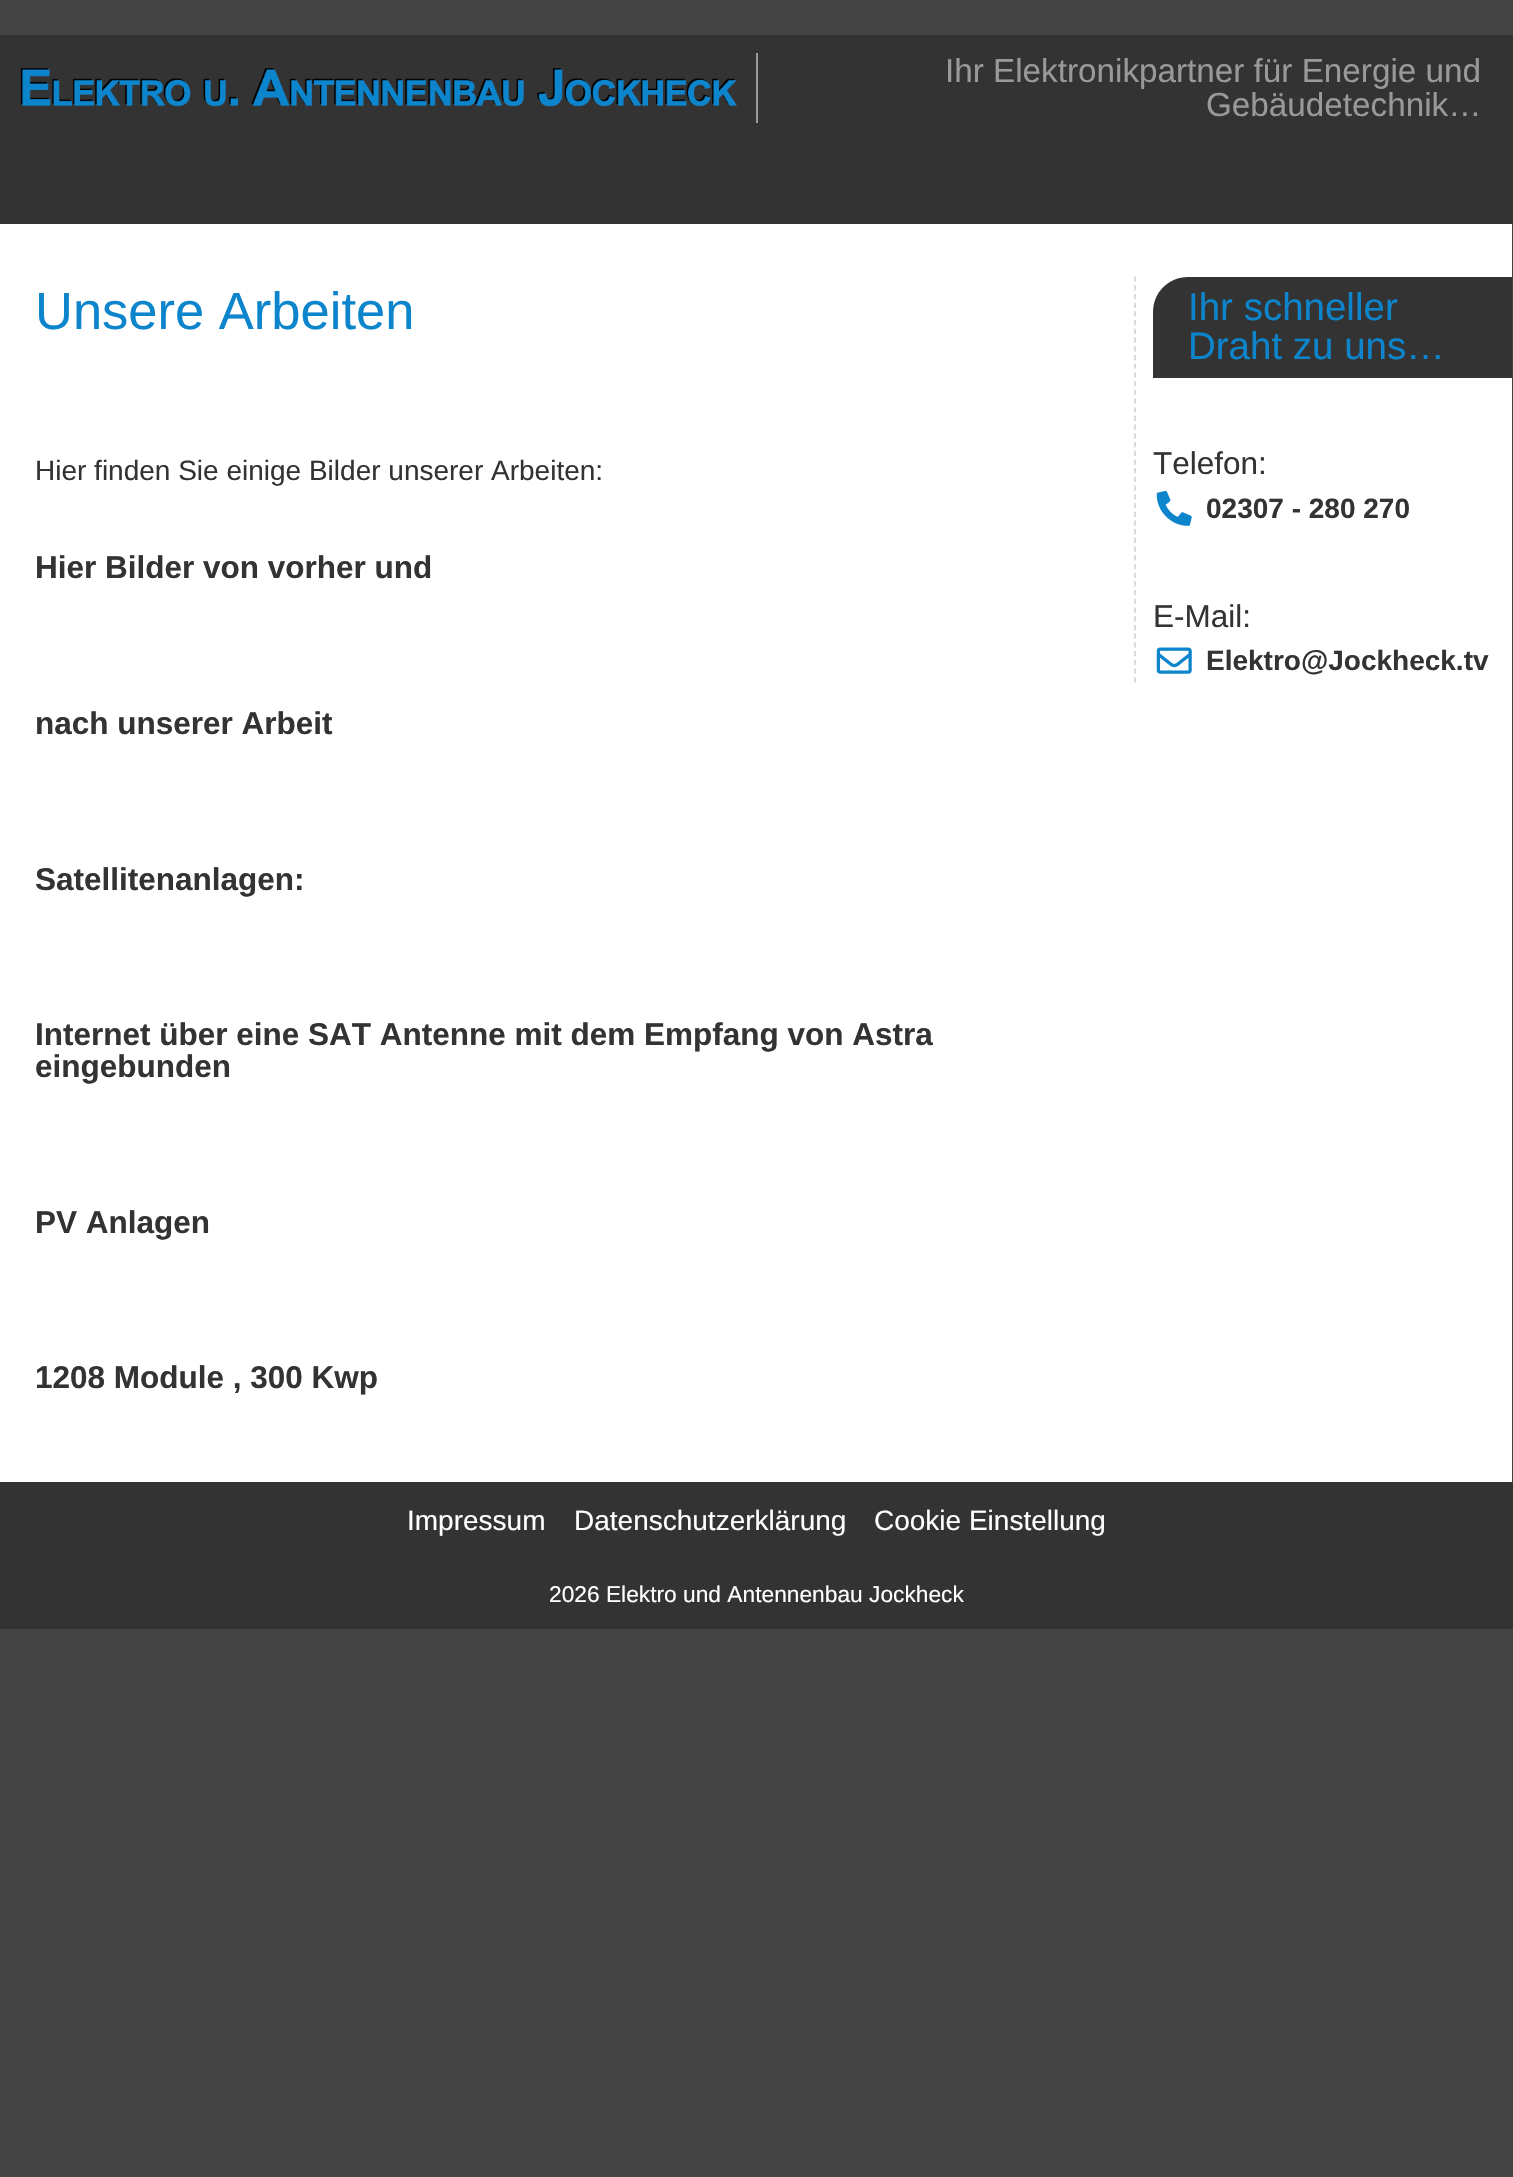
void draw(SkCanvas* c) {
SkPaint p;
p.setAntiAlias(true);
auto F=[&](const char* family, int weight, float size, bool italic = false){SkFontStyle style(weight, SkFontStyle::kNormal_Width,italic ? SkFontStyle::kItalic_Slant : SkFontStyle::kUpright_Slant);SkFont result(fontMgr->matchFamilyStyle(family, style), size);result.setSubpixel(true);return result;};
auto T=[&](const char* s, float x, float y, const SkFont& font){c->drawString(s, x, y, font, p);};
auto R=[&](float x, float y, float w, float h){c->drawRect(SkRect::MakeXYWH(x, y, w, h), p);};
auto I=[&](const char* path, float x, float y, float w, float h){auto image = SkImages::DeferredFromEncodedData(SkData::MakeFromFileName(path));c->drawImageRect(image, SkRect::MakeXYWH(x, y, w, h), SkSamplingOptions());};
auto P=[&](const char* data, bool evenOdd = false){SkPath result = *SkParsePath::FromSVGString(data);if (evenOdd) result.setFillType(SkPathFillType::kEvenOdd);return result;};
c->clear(0xff444444);
p.setColor(0xff333333);
R(0,35,1513,189);
I("1.png",20,68,717,39);
p.setColor(0xff999999);
R(756,53,2,70);
auto f1 = F("Liberation Sans",400,33.25);
T("Ihr Elektronikpartner für Energie und",945,82,f1);
T("Gebäudetechnik…",1206,116,f1);
p.setColor(0xffffffff);
R(0,224,1512,1258);
auto f2 = F("Liberation Sans",400,52.5);
p.setColor(0xff0d85cc);
T("Unsere Arbeiten",35,329,f2);
auto f3 = F("Liberation Sans",400,28);
p.setColor(0xff333333);
T("Hier finden Sie einige Bilder unserer Arbeiten:",35,480,f3);
auto f4 = F("Liberation Sans",700,31.5);
T("Hier Bilder von vorher und",35,578,f4);
T("nach unserer Arbeit",35,734,f4);
T("Satellitenanlagen:",35,890,f4);
T("Internet über eine SAT Antenne mit dem Empfang von Astra",35,1045,f4);
T("eingebunden",35,1077,f4);
T("PV Anlagen",35,1233,f4);
T("1208 Module , 300 Kwp",35,1388,f4);
p.setStroke(true);
p.setStrokeWidth(1.8);
p.setColor(0xffd6d6d6);
p.setPathEffect(SkDashPathEffect::Make({{5.25f,3.46f}}, 0));
c->drawPath(P("M1135 276.5v406"),p);
p.setPathEffect(nullptr);
p.setStroke(false);
p.setColor(0xff333333);
c->drawPath(P("M1188 277h324v101h-359v-66c0-19.5 15.5-35 35-35z"),p);
auto f5 = F("Liberation Sans",400,38.5);
p.setColor(0xff0d85cc);
T("Ihr schneller",1188,320,f5);
T("Draht zu uns…",1188,359,f5);
auto f6 = F("Liberation Sans",400,31.5);
p.setColor(0xff333333);
T("Telefon:",1153,474,f6);
I("2.png",1156,490,36,36);
auto f7 = F("Liberation Sans",700,28);
T("02307 - 280 270",1206,518,f7);
T("E-Mail:",1153,627,f6);
I("3.png",1156,647,36,27);
T("Elektro@Jockheck.tv",1206,670,f7);
R(0,1482,1513,147);
p.setColor(0xffffffff);
T("Impressum",407,1530,f3);
T("Datenschutzerklärung",574,1530,f3);
T("Cookie Einstellung",874,1530,f3);
auto f8 = F("Liberation Sans",400,22.75);
T("2026 Elektro und Antennenbau Jockheck",549,1602,f8);
}
